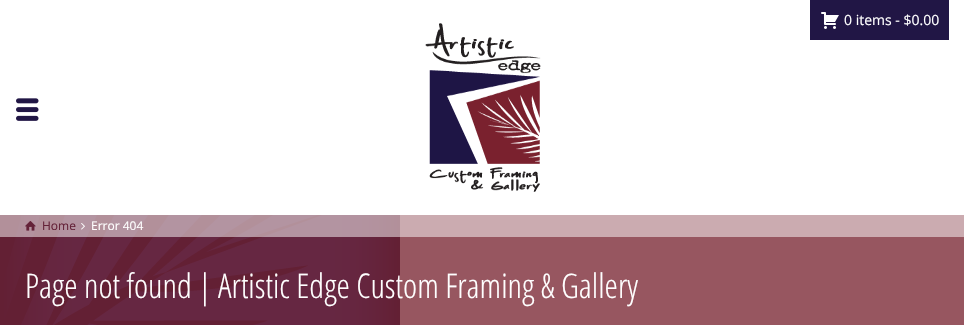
void draw(SkCanvas* c) {
SkPaint p;
p.setAntiAlias(true);
auto F=[&](const char* family, int weight, float size, bool italic = false){SkFontStyle style(weight, SkFontStyle::kNormal_Width,italic ? SkFontStyle::kItalic_Slant : SkFontStyle::kUpright_Slant);SkFont result(fontMgr->matchFamilyStyle(family, style), size);result.setSubpixel(true);return result;};
auto T=[&](const char* s, float x, float y, const SkFont& font){c->drawString(s, x, y, font, p);};
auto R=[&](float x, float y, float w, float h){c->drawRect(SkRect::MakeXYWH(x, y, w, h), p);};
auto I=[&](const char* path, float x, float y, float w, float h){auto image = SkImages::DeferredFromEncodedData(SkData::MakeFromFileName(path));c->drawImageRect(image, SkRect::MakeXYWH(x, y, w, h), SkSamplingOptions());};
c->clear(0xffedeef8);
p.setColor(0xffffffff);
R(0,0,964,215);
p.setColor(0xff211645);
R(810,0,139,40);
I("1.png",821,12,18,17);
auto f1 = F("Open Sans",400,14);
p.setColor(0xffffffff);
T("0 items - $0.00",844,25,f1);
I("2.png",0,215,400,110);
I("3.png",16,98,23,23);
I("4.png",425,23,116,169);
p.setColor(0xbf7a232e);
R(0,215,964,110);
p.setColor(0x80ffffff);
R(0,215,964,22);
I("5.png",25,221,11,10);
auto f2 = F("Open Sans",400,12);
p.setColor(0xff642238);
T("Home",42,230,f2);
I("6.png",81,223,4,7);
p.setColor(0xffffffff);
T("Error 404",91,230,f2);
auto f3 = F("Open Sans Condensed",300,34);
T("Page not found | Artistic Edge Custom Framing & Gallery",25,298,f3);
}
